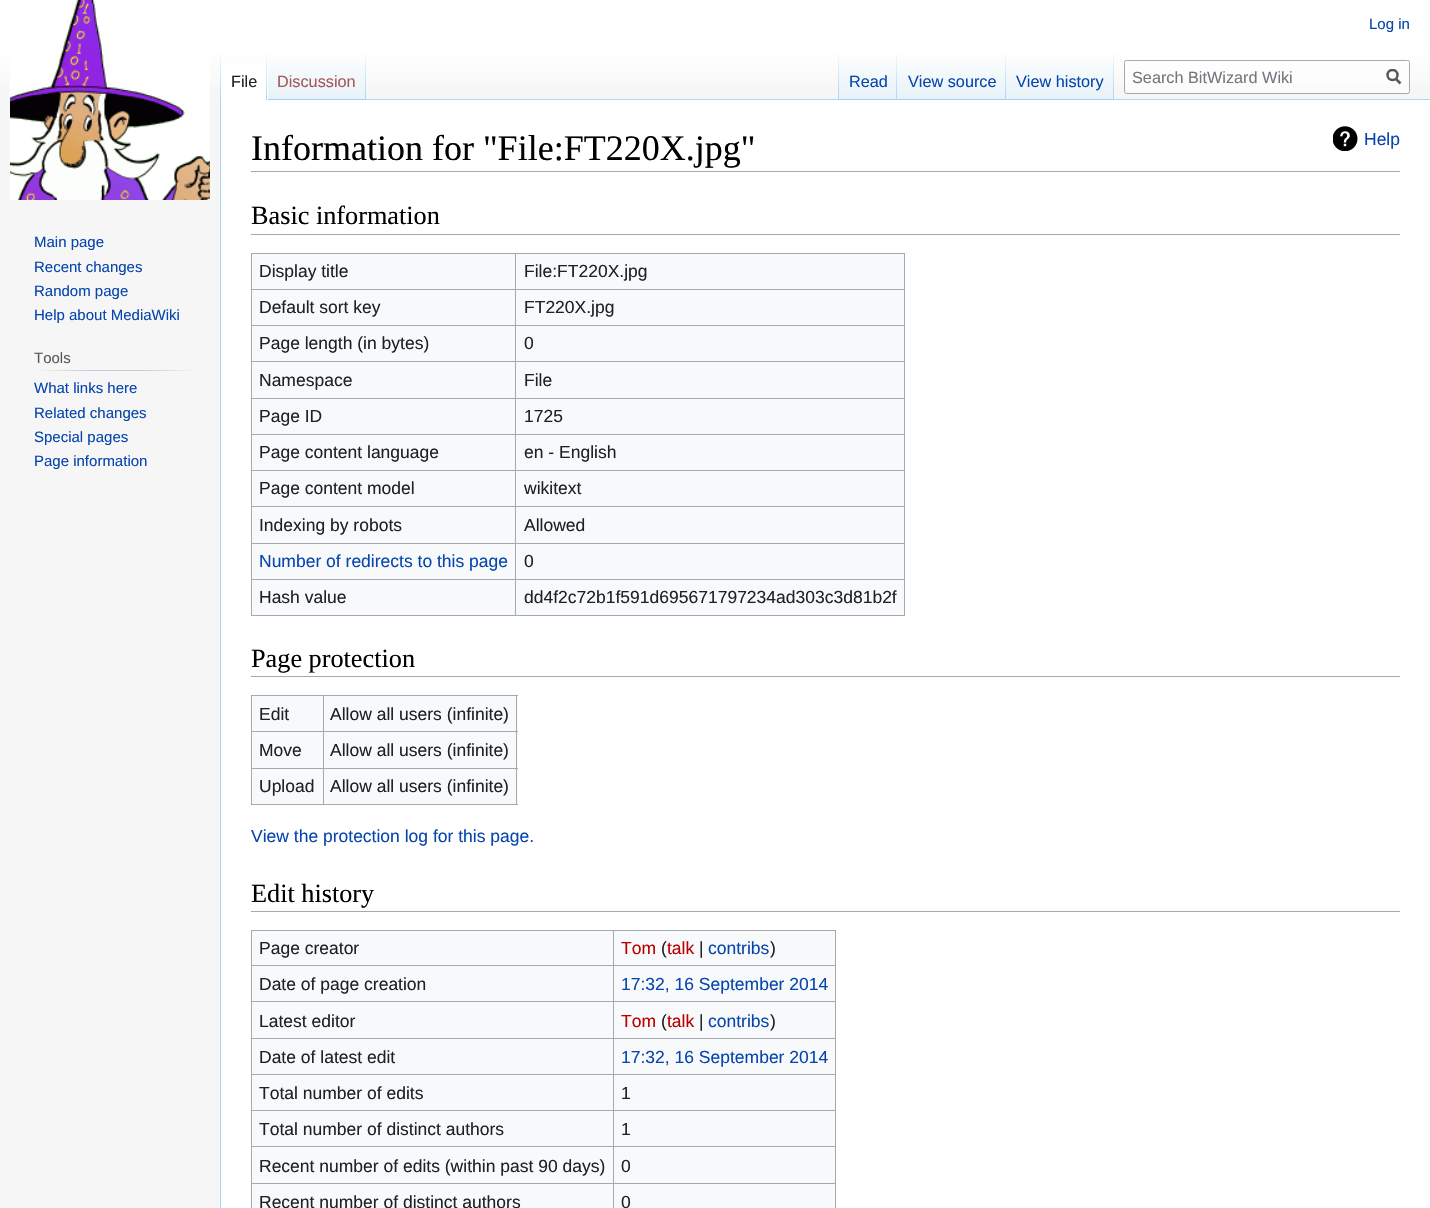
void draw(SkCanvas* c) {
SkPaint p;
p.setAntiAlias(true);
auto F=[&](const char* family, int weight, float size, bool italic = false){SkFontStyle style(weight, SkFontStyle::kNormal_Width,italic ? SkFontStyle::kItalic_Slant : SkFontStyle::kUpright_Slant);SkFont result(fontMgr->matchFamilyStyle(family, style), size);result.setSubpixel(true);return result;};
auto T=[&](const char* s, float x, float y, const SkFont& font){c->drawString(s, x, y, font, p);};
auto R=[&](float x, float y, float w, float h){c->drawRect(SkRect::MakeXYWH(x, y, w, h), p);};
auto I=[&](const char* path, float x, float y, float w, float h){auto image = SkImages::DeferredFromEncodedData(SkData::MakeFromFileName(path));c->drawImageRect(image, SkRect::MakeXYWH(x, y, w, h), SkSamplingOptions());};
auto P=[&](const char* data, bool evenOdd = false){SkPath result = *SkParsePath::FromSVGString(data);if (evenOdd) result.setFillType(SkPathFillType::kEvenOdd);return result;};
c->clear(0xfff6f6f6);
{
const SkColor colors[] = {0xffffffff,0xfff6f6f6};
const float stops[] = {.5,1};
const SkPoint ends[] = {{715,0}, {715,100}};
p.setShader(SkGradientShader::MakeLinear(ends, colors, stops, 2, SkTileMode::kClamp));
p.setAlpha(255);
}
R(0,0,1430,86);
auto f1 = F("Liberation Sans",400,15);
p.setShader(nullptr);
p.setColor(0xff0645ad);
T("Log in",1369,29,f1);
p.setColor(0xffa7d7f9);
R(220,99,1,1109);
{
const SkColor colors[] = {0x00a7d7f9,0xffa7d7f9};
const float stops[] = {0,1};
const SkPoint ends[] = {{221,50}, {221,100}};
p.setShader(SkGradientShader::MakeLinear(ends, colors, stops, 2, SkTileMode::kClamp));
p.setAlpha(255);
}
R(220,50,1,50);
p.setShader(nullptr);
p.setColor(0xffffffff);
R(221,64,47,36);
{
const SkColor colors[] = {0xffffffff,0xffa7d7f9};
const float stops[] = {0,1};
const SkPoint ends[] = {{267,50}, {267,100}};
p.setShader(SkGradientShader::MakeLinear(ends, colors, stops, 2, SkTileMode::kClamp));
p.setAlpha(255);
}
R(266,50,1,50);
auto f2 = F("Liberation Sans",400,16.25);
p.setShader(nullptr);
p.setColor(0xff202122);
T("File",231,87,f2);
{
const SkColor colors[] = {0xff77c1f6,0xffe8f2f8,0xffffffff};
const float stops[] = {0,.03,1};
const SkPoint ends[] = {{317,100}, {317,50}};
p.setShader(SkGradientShader::MakeLinear(ends, colors, stops, 3, SkTileMode::kClamp));
p.setAlpha(255);
}
R(268,57,98,43);
{
const SkColor colors[] = {0x00a7d7f9,0xffa7d7f9};
const float stops[] = {0,1};
const SkPoint ends[] = {{366,50}, {366,100}};
p.setShader(SkGradientShader::MakeLinear(ends, colors, stops, 2, SkTileMode::kClamp));
p.setAlpha(255);
}
R(365,50,1,50);
p.setShader(nullptr);
p.setColor(0xffa55858);
T("Discussion",277,87,f2);
p.setColor(0xffa7d7f9);
R(366,99,1064,1);
{
const SkColor colors[] = {0x00a7d7f9,0xffa7d7f9};
const float stops[] = {0,1};
const SkPoint ends[] = {{838,50}, {838,100}};
p.setShader(SkGradientShader::MakeLinear(ends, colors, stops, 2, SkTileMode::kClamp));
p.setAlpha(255);
}
R(838,50,1,50);
{
const SkColor colors[] = {0xff77c1f6,0xffe8f2f8,0xffffffff};
const float stops[] = {0,.03,1};
const SkPoint ends[] = {{868,100}, {868,50}};
p.setShader(SkGradientShader::MakeLinear(ends, colors, stops, 3, SkTileMode::kClamp));
p.setAlpha(255);
}
R(839,57,59,43);
{
const SkColor colors[] = {0x00a7d7f9,0xffa7d7f9};
const float stops[] = {0,1};
const SkPoint ends[] = {{897,50}, {897,100}};
p.setShader(SkGradientShader::MakeLinear(ends, colors, stops, 2, SkTileMode::kClamp));
p.setAlpha(255);
}
R(896,50,1,50);
p.setShader(nullptr);
p.setColor(0xff0645ad);
T("Read",849,87,f2);
{
const SkColor colors[] = {0xff77c1f6,0xffe8f2f8,0xffffffff};
const float stops[] = {0,.03,1};
const SkPoint ends[] = {{952,100}, {952,50}};
p.setShader(SkGradientShader::MakeLinear(ends, colors, stops, 3, SkTileMode::kClamp));
p.setAlpha(255);
}
R(898,57,108,43);
{
const SkColor colors[] = {0x00a7d7f9,0xffa7d7f9};
const float stops[] = {0,1};
const SkPoint ends[] = {{1006,50}, {1006,100}};
p.setShader(SkGradientShader::MakeLinear(ends, colors, stops, 2, SkTileMode::kClamp));
p.setAlpha(255);
}
R(1005,50,1,50);
p.setShader(nullptr);
p.setColor(0xff0645ad);
T("View source",908,87,f2);
{
const SkColor colors[] = {0xff77c1f6,0xffe8f2f8,0xffffffff};
const float stops[] = {0,.03,1};
const SkPoint ends[] = {{1060,100}, {1060,50}};
p.setShader(SkGradientShader::MakeLinear(ends, colors, stops, 3, SkTileMode::kClamp));
p.setAlpha(255);
}
R(1006,57,108,43);
{
const SkColor colors[] = {0x00a7d7f9,0xffa7d7f9};
const float stops[] = {0,1};
const SkPoint ends[] = {{1113,50}, {1113,100}};
p.setShader(SkGradientShader::MakeLinear(ends, colors, stops, 2, SkTileMode::kClamp));
p.setAlpha(255);
}
R(1113,50,1,50);
p.setShader(nullptr);
p.setColor(0xff0645ad);
T("View history",1016,87,f2);
p.setColor(0x80ffffff);
c->drawRoundRect(SkRect::MakeXYWH(1124.5,60.5,285,33),2,2,p);
p.setStroke(true);
p.setStrokeWidth(1);
p.setColor(0xffa2a9b1);
c->drawRoundRect(SkRect::MakeXYWH(1124.5,60.5,285,33),2,2,p);
p.setStroke(false);
p.setColor(0xff72777d);
T("Search BitWizard Wiki",1132,83,f2);
p.setStroke(true);
p.setStrokeWidth(2.5);
p.setColor(0xff54595d);
c->drawPath(P("M1400.5 83.5l-5-5"),p);
c->save();
c->clipRect(SkRect::MakeXYWH(1386,69,15,16));
c->drawCircle(1392.5,75,5,p);
c->restore();
I("1.png",10,0,200,200);
p.setStroke(false);
p.setColor(0xff0645ad);
T("Main page",34,247,f1);
T("Recent changes",34,272,f1);
T("Random page",34,296,f1);
T("Help about MediaWiki",34,320,f1);
{
const SkColor colors[] = {0xfff6f6f6,0xffc8ccd1,0xffc8ccd1,0xfff6f6f6};
const float stops[] = {0,.33,.66,1};
const SkPoint ends[] = {{34,371}, {198,371}};
p.setShader(SkGradientShader::MakeLinear(ends, colors, stops, 4, SkTileMode::kClamp));
p.setAlpha(255);
}
R(34,370,164,1);
p.setShader(nullptr);
p.setColor(0xff54595d);
T("Tools",34,363,f1);
p.setColor(0xff0645ad);
T("What links here",34,393,f1);
T("Related changes",34,418,f1);
T("Special pages",34,442,f1);
T("Page information",34,466,f1);
p.setColor(0xffffffff);
R(221,100,1209,1108);
p.setColor(0xffa2a9b1);
R(251,171,1149,1);
auto f3 = F("Liberation Serif",400,36);
p.setColor(0xff000000);
T("Information for \"File:FT220X.jpg\"",251,160,f3);
I("2.png",1333,126,25,25);
auto f4 = F("Liberation Sans",400,17.5);
p.setColor(0xff0645ad);
T("Help",1364,145,f4);
p.setColor(0xffa2a9b1);
R(251,234,1149,1);
auto f5 = F("Liberation Serif",400,26.25);
p.setColor(0xff000000);
T("Basic information",251,224,f5);
p.setColor(0xfff8f9fa);
R(252,254,652,361);
p.setColor(0xffa2a9b1);
R(251,253,654,1);
R(904,253,1,363);
R(251,615,654,1);
R(251,253,1,363);
p.setColor(0xff202122);
T("Display title",259,277,f4);
p.setColor(0xffa2a9b1);
R(515,289,390,1);
R(515,325,390,1);
R(515,361,390,1);
R(515,398,390,1);
R(515,434,390,1);
R(515,470,390,1);
R(515,506,390,1);
R(515,543,390,1);
R(515,579,390,1);
R(515,579,1,37);
R(251,579,265,1);
R(515,543,1,37);
R(251,543,265,1);
R(515,506,1,38);
R(251,506,265,1);
R(515,470,1,38);
R(251,470,265,1);
R(515,434,1,37);
R(251,434,265,1);
R(515,398,1,37);
R(251,398,265,1);
R(515,361,1,38);
R(251,361,265,1);
R(515,325,1,38);
R(251,325,265,1);
R(515,289,1,37);
R(251,289,265,1);
R(515,253,1,37);
p.setColor(0xff202122);
T("File:FT220X.jpg",524,277,f4);
T("Default sort key",259,313,f4);
T("FT220X.jpg",524,313,f4);
T("Page length (in bytes)",259,349,f4);
T("0",524,349,f4);
T("Namespace",259,386,f4);
T("File",524,386,f4);
T("Page ID",259,422,f4);
T("1725",524,422,f4);
T("Page content language",259,458,f4);
T("en - English",524,458,f4);
T("Page content model",259,494,f4);
T("wikitext",524,494,f4);
T("Indexing by robots",259,531,f4);
T("Allowed",524,531,f4);
p.setColor(0xff0645ad);
T("Number of redirects to this page",259,567,f4);
p.setColor(0xff202122);
T("0",524,567,f4);
T("Hash value",259,603,f4);
T("dd4f2c72b1f591d695671797234ad303c3d81b2f",524,603,f4);
p.setColor(0xffa2a9b1);
R(251,676,1149,1);
p.setColor(0xff000000);
T("Page protection",251,667,f5);
p.setColor(0xfff8f9fa);
R(252,696,266,108);
p.setColor(0xffa2a9b1);
R(251,695,267,1);
R(516,695,1,110);
R(251,804,267,1);
R(251,695,1,110);
p.setColor(0xff202122);
T("Edit",259,720,f4);
p.setColor(0xffa2a9b1);
R(323,731,195,1);
R(323,768,195,1);
R(323,768,1,37);
R(251,768,73,1);
R(323,731,1,38);
R(251,731,73,1);
R(323,695,1,38);
p.setColor(0xff202122);
T("Allow all users (infinite)",330,720,f4);
T("Move",259,756,f4);
T("Allow all users (infinite)",330,756,f4);
T("Upload",259,792,f4);
T("Allow all users (infinite)",330,792,f4);
p.setColor(0xff0645ad);
T("View the protection log for this page.",251,842,f4);
p.setColor(0xffa2a9b1);
R(251,911,1149,1);
p.setColor(0xff000000);
T("Edit history",251,902,f5);
p.setColor(0xfff8f9fa);
R(252,931,583,277);
p.setColor(0xffa2a9b1);
R(251,930,585,1);
R(835,930,1,278);
R(251,930,1,278);
p.setColor(0xff202122);
T("Page creator",259,954,f4);
p.setColor(0xffa2a9b1);
R(613,965,223,1);
R(613,1001,223,1);
R(613,1038,223,1);
R(613,1074,223,1);
R(613,1110,223,1);
R(613,1146,223,1);
R(613,1183,223,1);
R(613,1183,1,25);
R(251,1183,363,1);
R(613,1146,1,38);
R(251,1146,363,1);
R(613,1110,1,38);
R(251,1110,363,1);
R(613,1074,1,37);
R(251,1074,363,1);
R(613,1038,1,37);
R(251,1038,363,1);
R(613,1001,1,38);
R(251,1001,363,1);
R(613,965,1,38);
R(251,965,363,1);
R(613,930,1,36);
p.setColor(0xffba0000);
T("Tom",621,954,f4);
p.setColor(0xff202122);
T("(",661,954,f4);
p.setColor(0xffba0000);
T("talk",667,954,f4);
p.setColor(0xff202122);
T("|",699,954,f4);
p.setColor(0xff0645ad);
T("contribs",708,954,f4);
p.setColor(0xff202122);
T(")",770,954,f4);
T("Date of page creation",259,990,f4);
p.setColor(0xff0645ad);
T("17:32, 16 September 2014",621,990,f4);
p.setColor(0xff202122);
T("Latest editor",259,1027,f4);
p.setColor(0xffba0000);
T("Tom",621,1027,f4);
p.setColor(0xff202122);
T("(",661,1027,f4);
p.setColor(0xffba0000);
T("talk",667,1027,f4);
p.setColor(0xff202122);
T("|",699,1027,f4);
p.setColor(0xff0645ad);
T("contribs",708,1027,f4);
p.setColor(0xff202122);
T(")",770,1027,f4);
T("Date of latest edit",259,1063,f4);
p.setColor(0xff0645ad);
T("17:32, 16 September 2014",621,1063,f4);
p.setColor(0xff202122);
T("Total number of edits",259,1099,f4);
T("1",621,1099,f4);
T("Total number of distinct authors",259,1135,f4);
T("1",621,1135,f4);
T("Recent number of edits (within past 90 days)",259,1172,f4);
T("0",621,1172,f4);
T("Recent number of distinct authors",259,1208,f4);
T("0",621,1208,f4);
}
